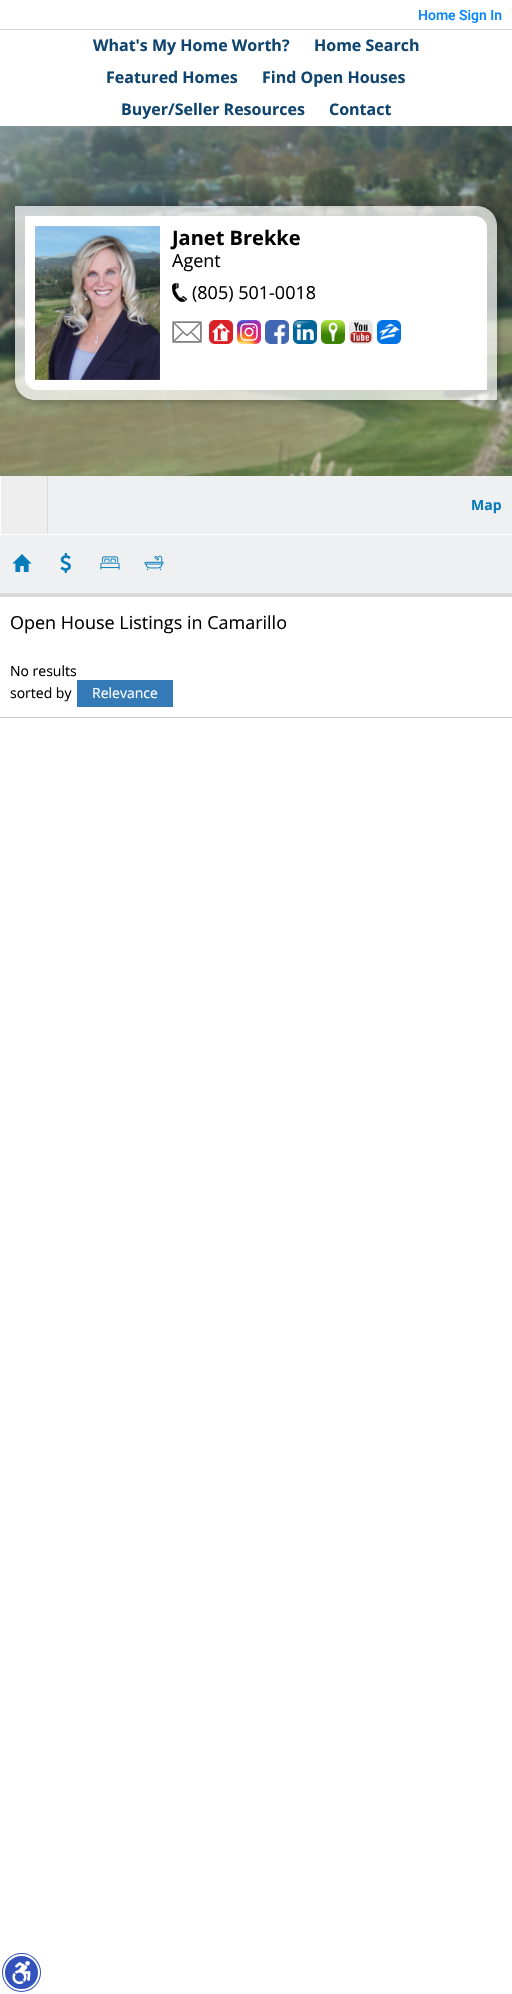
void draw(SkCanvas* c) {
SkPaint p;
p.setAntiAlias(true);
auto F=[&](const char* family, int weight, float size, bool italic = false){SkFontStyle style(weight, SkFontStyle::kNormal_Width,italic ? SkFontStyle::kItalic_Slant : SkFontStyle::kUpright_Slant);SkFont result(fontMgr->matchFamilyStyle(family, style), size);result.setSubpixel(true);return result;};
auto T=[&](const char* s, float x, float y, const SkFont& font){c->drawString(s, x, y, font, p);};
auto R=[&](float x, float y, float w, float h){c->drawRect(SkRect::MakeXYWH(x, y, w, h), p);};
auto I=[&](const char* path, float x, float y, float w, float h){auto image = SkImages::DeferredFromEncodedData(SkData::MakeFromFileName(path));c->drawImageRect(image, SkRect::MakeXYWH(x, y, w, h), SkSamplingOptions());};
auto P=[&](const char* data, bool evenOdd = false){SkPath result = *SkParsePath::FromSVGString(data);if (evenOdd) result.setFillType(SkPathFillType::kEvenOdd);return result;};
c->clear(0xffffffff);
p.setColor(0xffd6d6d6);
R(0,29,512,1);
auto f1 = F("Roboto",500,14);
p.setColor(0xff0084ff);
T("Home Sign In",418,20,f1);
auto f2 = F("Open Sans",700,16);
p.setColor(0xff10456f);
T("What's My Home Worth?",93,51,f2);
T("Home Search",314,51,f2);
T("Featured Homes",106,83,f2);
T("Find Open Houses",262,83,f2);
T("Buyer/Seller Resources",121,115,f2);
T("Contact",329,115,f2);
I("1.png",0,126,512,350);
c->save();
c->clipPath(P("M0 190h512v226h-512zm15 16h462c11 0 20 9 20 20v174h-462c-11 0-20-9-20-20z",true),true);
p.setColor(0x66000000);
p.setMaskFilter(SkMaskFilter::MakeBlur(kNormal_SkBlurStyle, 5));
c->drawRoundRect(SkRect::MakeXYWH(15,206,482,194),20,20,p);
p.setMaskFilter(nullptr);
c->restore();
p.setColor(0xb3ffffff);
c->drawPath(P("M15 206h462c11 0 20 9 20 20v174h-462c-11 0-20-9-20-20z"),p);
p.setColor(0xffffffff);
c->drawPath(P("M25 216h450c6.5 0 12 5.5 12 12v162h-450c-6.5 0-12-5.5-12-12z"),p);
I("2.png",35,226,125,154);
auto f3 = F("Open Sans",700,20);
p.setColor(0xff000000);
T("Janet Brekke",172,245,f3);
auto f4 = F("Open Sans",400,18);
T("Agent",172,267,f4);
I("3.png",172,283,15,19);
T("(805) 501-0018",192,299,f4);
I("4.png",172,321,30,22);
I("5.png",209,320,24,24);
I("6.png",237,320,24,24);
I("7.png",265,320,24,24);
I("8.png",293,320,24,24);
I("9.png",321,320,24,24);
I("10.png",349,320,24,24);
I("11.png",377,320,24,24);
p.setColor(0xffeff0f2);
R(48,476,464,58);
p.setColor(0xffeeeeee);
R(1,476,46,58);
p.setColor(0xffdbdbdb);
R(47,476,1,58);
auto f5 = F("Open Sans",700,14);
p.setColor(0xff067cba);
T("Map",471,510,f5);
p.setColor(0xffeff0f2);
R(0,535,512,58);
I("12.png",12,554,20,18);
I("13.png",60,553,11,20);
I("14.png",100,556,20,14);
I("15.png",144,555,20,16);
p.setColor(0xffd9d9d9);
R(0,593,512,4);
p.setColor(0xffcccccc);
R(0,717,512,1);
p.setColor(0xff000000);
T("Open House Listings in Camarillo",10,629,f4);
auto f6 = F("Open Sans",400,14);
T("No results",10,676,f6);
T("sorted by",10,698,f6);
p.setColor(0xff337ab7);
R(77,680,96,27);
p.setColor(0xffffffff);
T("Relevance",92,698,f6);
p.setStroke(true);
p.setStrokeWidth(2);
p.setColor(0xff3452bd);
c->drawCircle(21.5,1972.5,18.5,p);
p.setStroke(false);
c->drawCircle(21.5,1972.5,17.5,p);
p.setStroke(true);
p.setColor(0xffffffff);
c->drawCircle(21.5,1972.5,17.5,p);
I("16.png",12,1961,19,24);
}
